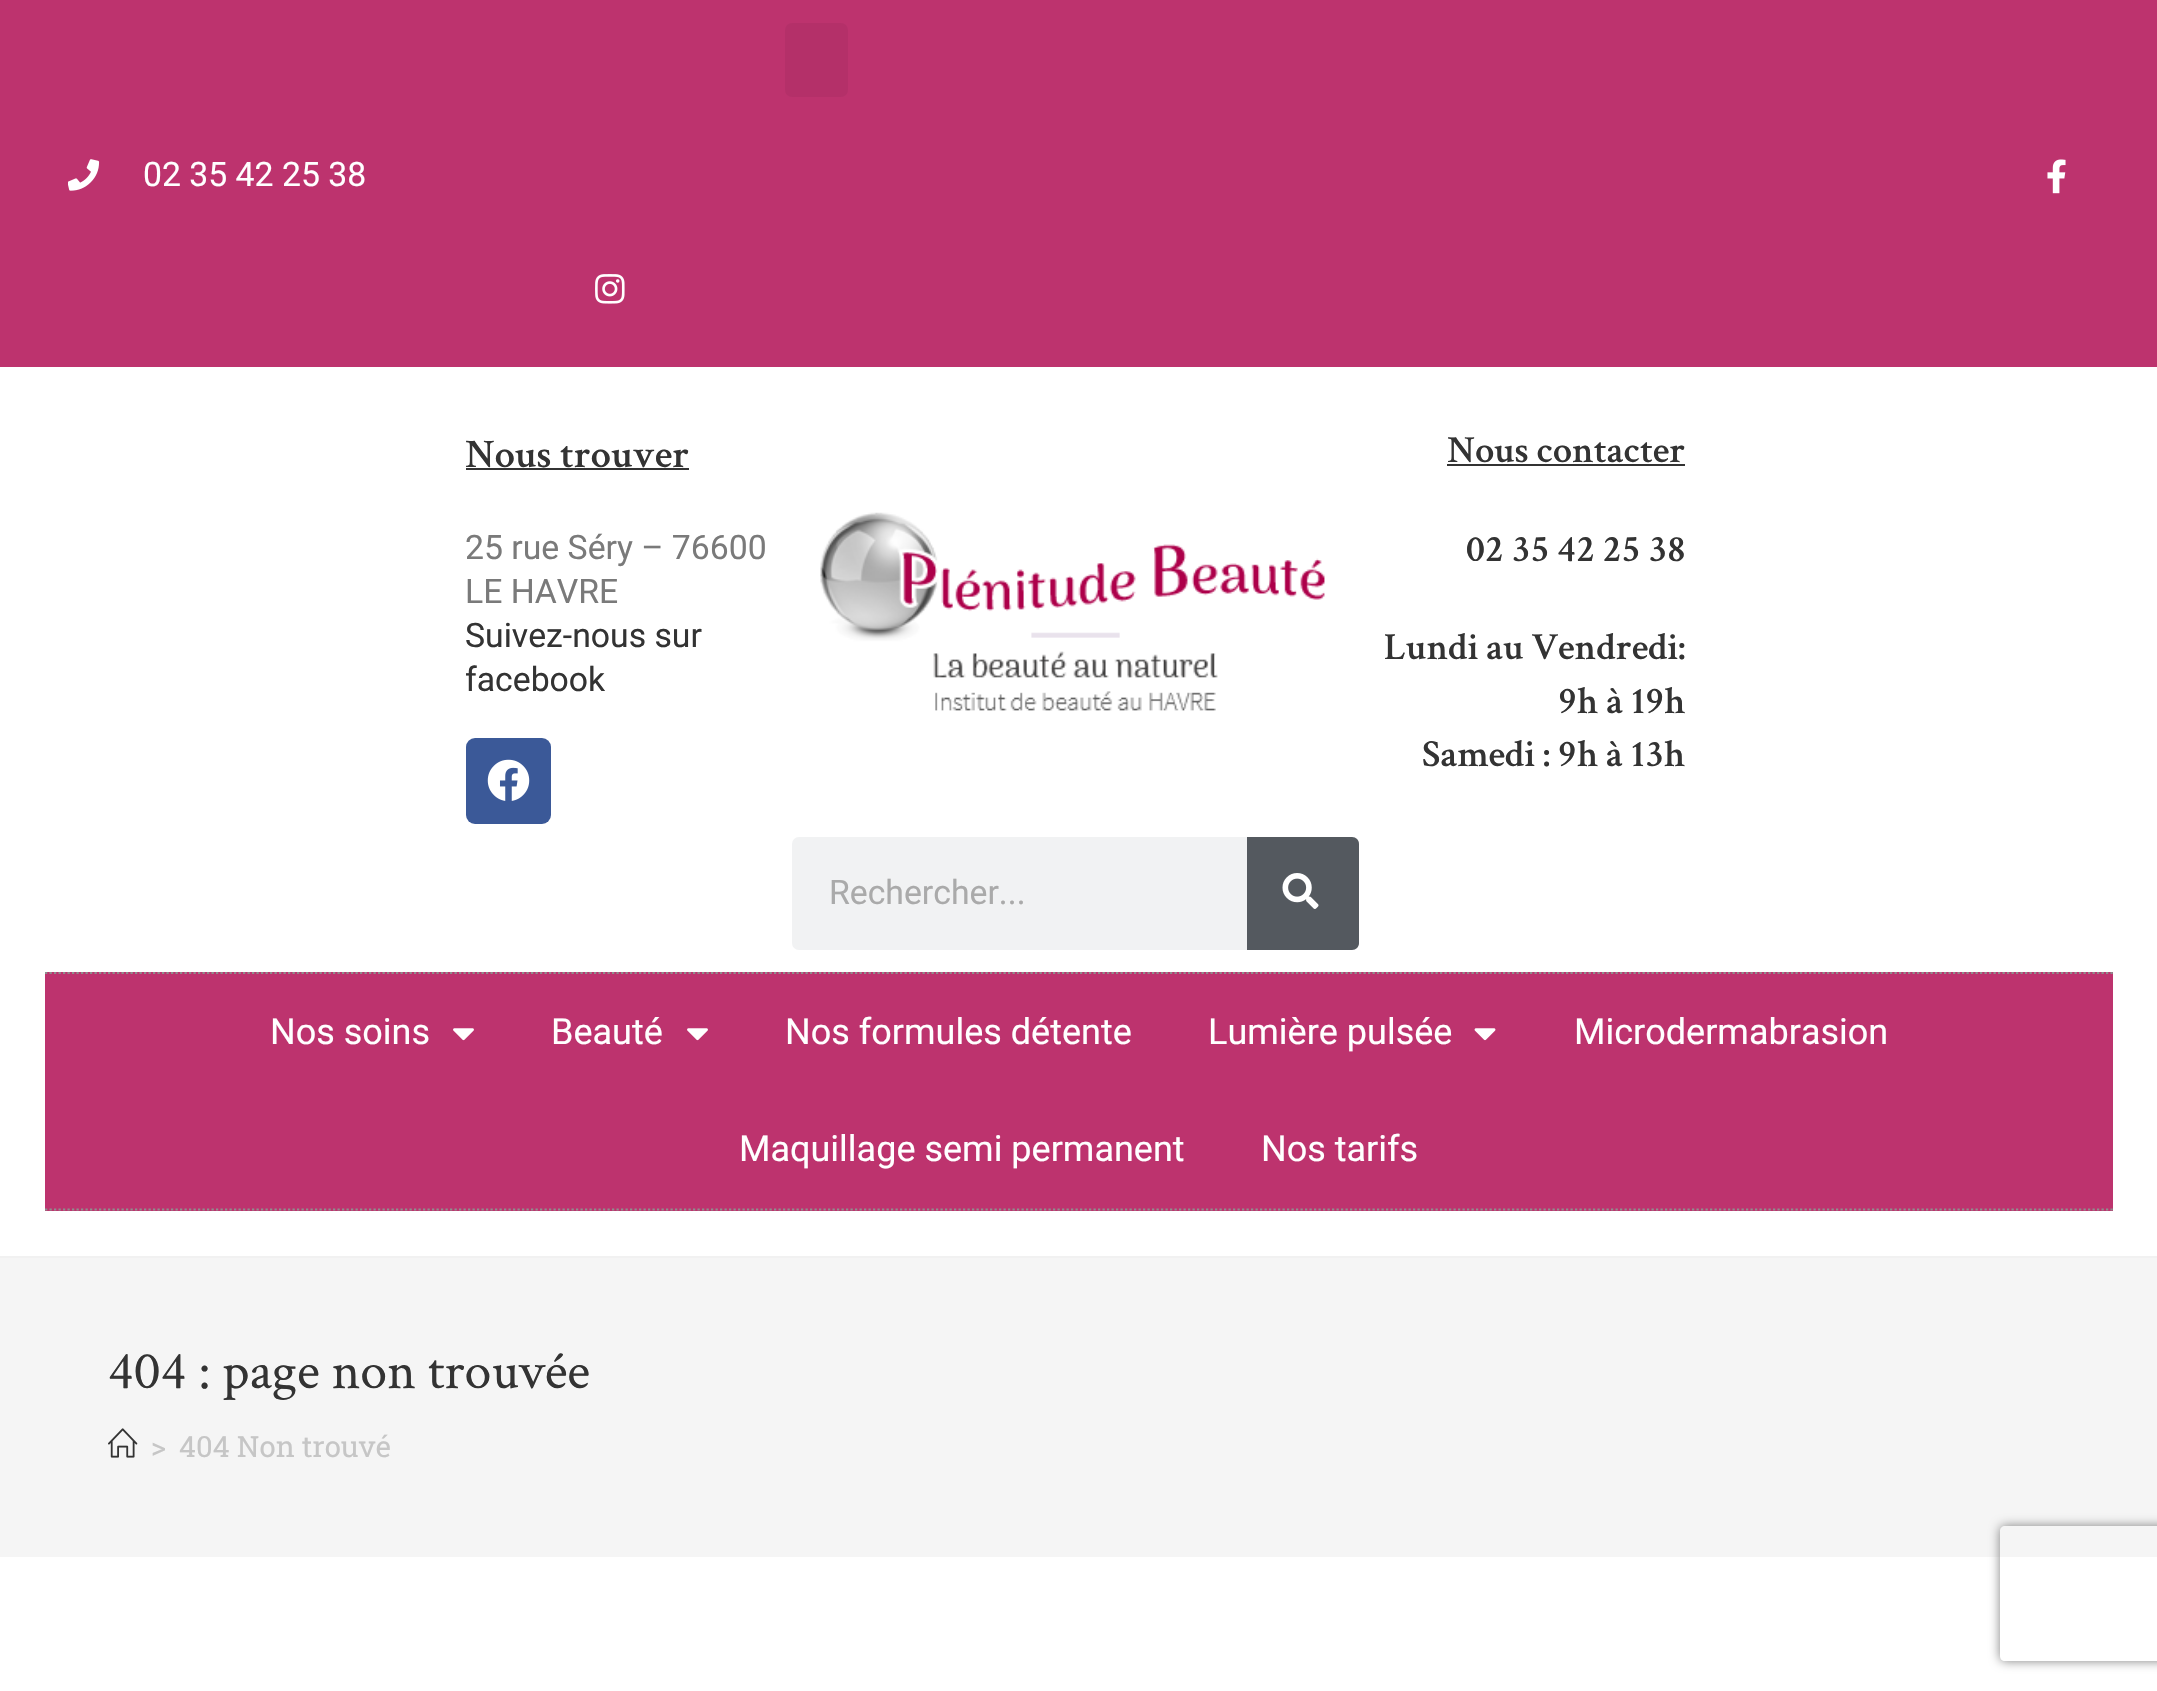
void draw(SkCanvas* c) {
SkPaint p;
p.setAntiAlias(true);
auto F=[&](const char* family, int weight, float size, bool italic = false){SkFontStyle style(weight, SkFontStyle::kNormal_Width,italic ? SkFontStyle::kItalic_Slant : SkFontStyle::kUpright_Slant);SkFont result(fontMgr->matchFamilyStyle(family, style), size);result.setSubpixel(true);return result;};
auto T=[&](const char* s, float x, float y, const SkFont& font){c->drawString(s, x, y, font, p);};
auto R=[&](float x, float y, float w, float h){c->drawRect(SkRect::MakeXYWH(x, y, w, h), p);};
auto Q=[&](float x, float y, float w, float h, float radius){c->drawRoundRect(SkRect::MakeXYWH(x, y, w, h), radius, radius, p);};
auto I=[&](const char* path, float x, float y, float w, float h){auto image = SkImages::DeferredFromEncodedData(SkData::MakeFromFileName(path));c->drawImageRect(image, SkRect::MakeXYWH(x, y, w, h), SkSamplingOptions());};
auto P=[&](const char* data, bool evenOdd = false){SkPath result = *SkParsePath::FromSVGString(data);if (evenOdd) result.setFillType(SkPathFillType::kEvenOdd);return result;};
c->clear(0xffffffff);
p.setColor(0xfff1f1f1);
R(0,1256,2157,2);
p.setColor(0xffbd336e);
R(0,0,2157,367);
p.setColor(0xffb43069);
Q(785,23,63,74,7);
I("1.png",68,159,32,32);
auto f1 = F("Roboto",400,33.75);
p.setColor(0xffffffff);
T("02 35 42 25 38",143,186,f1);
I("2.png",2047,159,19,35);
I("3.png",595,274,30,30);
auto f2 = F("Crimson Text",600,40.5);
p.setColor(0xff333333);
T("Nous trouver",465,467,f2);
R(466,468,223,2);
p.setColor(0xff7a7a7a);
T("25 rue Séry – 76600",465,559,f1);
T("LE HAVRE",465,603,f1);
p.setColor(0xff333333);
T("Suivez-nous sur",465,647,f1);
T("facebook",465,691,f1);
p.setColor(0xff3b5998);
Q(466,738,85,86,9);
I("4.png",487,759,43,42);
auto f3 = F("Crimson Text",600,38.25);
p.setColor(0xff333333);
T("Nous contacter",1447,462,f3);
R(1447,464,238,2);
T("02 35 42 25 38",1466,561,f3);
T("Lundi au Vendredi:",1384,659,f3);
T("9h à 19h",1558,713,f3);
T("Samedi : 9h à 13h",1422,766,f3);
I("5.png",820,512,505,199);
p.setColor(0xfff1f2f3);
Q(792,837,567,113,7);
p.setColor(0xffaaaaaa);
T("Rechercher...",829,904,f1);
p.setColor(0xff54595f);
c->drawPath(P("M1247 837h105c4 0 7 3 7 7v99c0 4-3 7-7 7h-105z"),p);
I("6.png",1282,873,37,36);
p.setColor(0xffbd336e);
R(45,972,2068,239);
p.setStroke(true);
p.setStrokeWidth(2.2);
p.setColor(0xff8e8e8e);
p.setPathEffect(SkDashPathEffect::Make({{2.25f,2.25f}}, 0));
c->drawPath(P("M45 973h2068"),p);
p.setPathEffect(nullptr);
p.setPathEffect(SkDashPathEffect::Make({{2.25f,2.25f}}, 0));
c->drawPath(P("M45 1209.5h2068"),p);
p.setPathEffect(nullptr);
auto f4 = F("Roboto",400,36);
p.setStroke(false);
p.setColor(0xffffffff);
T("Nos soins",270,1044,f4);
I("7.png",453,1028,21,13);
T("Beauté",551,1044,f4);
I("7.png",687,1028,21,13);
T("Nos formules détente",785,1044,f4);
T("Lumière pulsée",1208,1044,f4);
I("8.png",1474,1028,22,13);
T("Microdermabrasion",1574,1044,f4);
T("Maquillage semi permanent",739,1161,f4);
T("Nos tarifs",1261,1161,f4);
p.setColor(0xfff5f5f5);
R(0,1258,2157,299);
auto f5 = F("Crimson Text",400,54);
p.setColor(0xff333333);
T("404 : page non trouvée",108,1388,f5);
I("9.png",108,1428,30,30);
auto f6 = F("Roboto Slab",400,29.25);
p.setColor(0xffc6c6c6);
T(">",151,1457,f6);
T("404 Non trouvé",179,1457,f6);
c->save();
c->clipPath(P("M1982 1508h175v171h-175zm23 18h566c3 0 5 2 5 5v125c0 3-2 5-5 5h-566c-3 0-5-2-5-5v-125c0-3 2-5 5-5z",true),true);
p.setColor(0xff808080);
p.setMaskFilter(SkMaskFilter::MakeBlur(kNormal_SkBlurStyle, 5.5));
c->drawRoundRect(SkRect::MakeXYWH(2000,1526,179,135),5,5,p);
p.setMaskFilter(nullptr);
c->restore();
}
